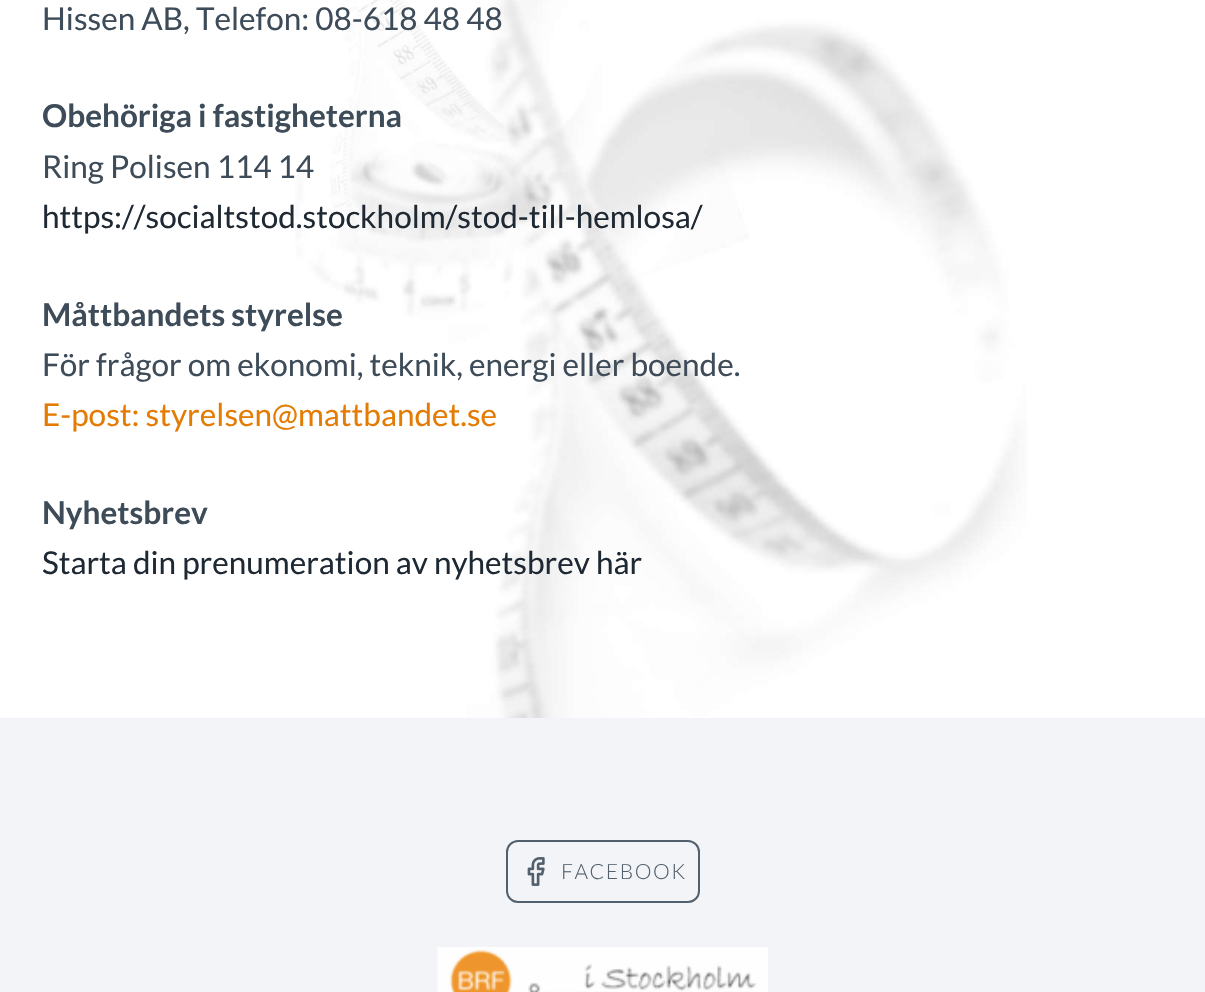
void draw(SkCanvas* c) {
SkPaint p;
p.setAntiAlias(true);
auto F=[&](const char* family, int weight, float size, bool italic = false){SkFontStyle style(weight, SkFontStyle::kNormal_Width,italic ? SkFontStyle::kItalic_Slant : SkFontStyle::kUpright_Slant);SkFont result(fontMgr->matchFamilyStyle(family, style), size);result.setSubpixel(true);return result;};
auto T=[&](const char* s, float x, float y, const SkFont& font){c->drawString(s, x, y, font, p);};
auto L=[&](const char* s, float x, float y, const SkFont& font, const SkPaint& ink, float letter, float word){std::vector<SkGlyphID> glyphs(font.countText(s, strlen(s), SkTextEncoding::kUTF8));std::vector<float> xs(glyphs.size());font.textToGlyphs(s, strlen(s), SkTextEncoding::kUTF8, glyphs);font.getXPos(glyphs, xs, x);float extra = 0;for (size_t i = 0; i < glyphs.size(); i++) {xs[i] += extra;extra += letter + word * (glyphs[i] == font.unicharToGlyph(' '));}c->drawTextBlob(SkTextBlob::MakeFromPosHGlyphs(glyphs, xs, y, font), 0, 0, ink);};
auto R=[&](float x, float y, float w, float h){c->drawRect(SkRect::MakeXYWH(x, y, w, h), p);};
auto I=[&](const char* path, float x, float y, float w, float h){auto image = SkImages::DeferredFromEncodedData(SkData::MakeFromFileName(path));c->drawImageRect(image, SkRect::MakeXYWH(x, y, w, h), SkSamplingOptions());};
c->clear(0xffffffff);
I("1.png",295,0,732,718);
auto f1 = F("Lato",400,31.5);
p.setColor(0xff3e4c59);
T("Hissen AB, Telefon: 08-618 48 48",42,30,f1);
auto f2 = F("Lato",700,31.5);
T("Obehöriga i fastigheterna",42,127,f2);
T("Ring Polisen 114 14",42,178,f1);
p.setColor(0xff1f2933);
T("https://socialtstod.stockholm/stod-till-hemlosa/",42,228,f1);
p.setColor(0xff3e4c59);
T("Måttbandets styrelse",42,326,f2);
T("För frågor om ekonomi, teknik, energi eller boende.",42,376,f1);
p.setColor(0xffe47b02);
T("E-post: styrelsen@mattbandet.se",42,426,f1);
p.setColor(0xff3e4c59);
T("Nyhetsbrev",42,524,f2);
p.setColor(0xff1f2933);
T("Starta din prenumeration av nyhetsbrev här",42,574,f1);
p.setColor(0xfff3f4f7);
R(0,718,1205,274);
p.setStroke(true);
p.setStrokeWidth(2);
p.setColor(0xff52606d);
c->drawRoundRect(SkRect::MakeXYWH(507,841,192,61),11,11,p);
I("2.png",527,857,18,29);
auto f3 = F("Lato",300,21);
p.setStroke(false);
L("FACEBOOK",561,879,f3,p,1.5,0);
I("3.png",437,947,331,45);
}
